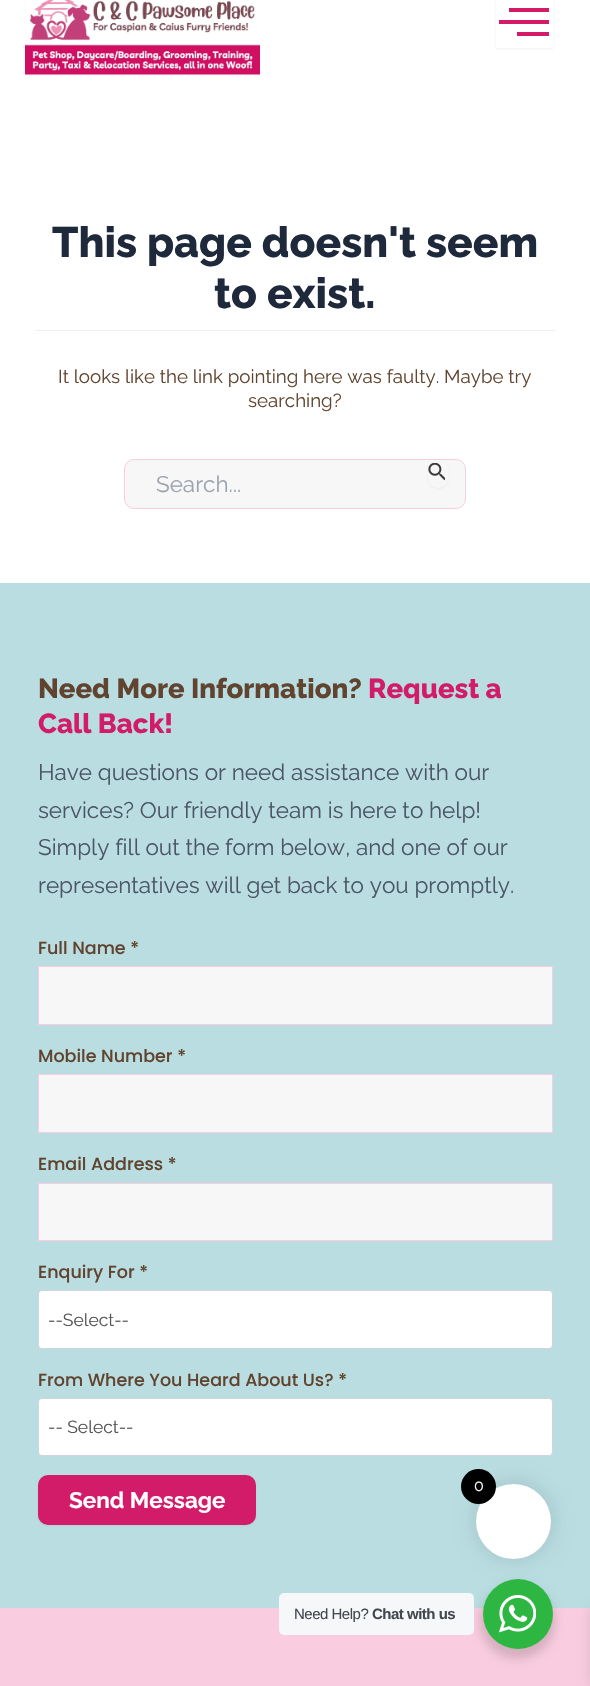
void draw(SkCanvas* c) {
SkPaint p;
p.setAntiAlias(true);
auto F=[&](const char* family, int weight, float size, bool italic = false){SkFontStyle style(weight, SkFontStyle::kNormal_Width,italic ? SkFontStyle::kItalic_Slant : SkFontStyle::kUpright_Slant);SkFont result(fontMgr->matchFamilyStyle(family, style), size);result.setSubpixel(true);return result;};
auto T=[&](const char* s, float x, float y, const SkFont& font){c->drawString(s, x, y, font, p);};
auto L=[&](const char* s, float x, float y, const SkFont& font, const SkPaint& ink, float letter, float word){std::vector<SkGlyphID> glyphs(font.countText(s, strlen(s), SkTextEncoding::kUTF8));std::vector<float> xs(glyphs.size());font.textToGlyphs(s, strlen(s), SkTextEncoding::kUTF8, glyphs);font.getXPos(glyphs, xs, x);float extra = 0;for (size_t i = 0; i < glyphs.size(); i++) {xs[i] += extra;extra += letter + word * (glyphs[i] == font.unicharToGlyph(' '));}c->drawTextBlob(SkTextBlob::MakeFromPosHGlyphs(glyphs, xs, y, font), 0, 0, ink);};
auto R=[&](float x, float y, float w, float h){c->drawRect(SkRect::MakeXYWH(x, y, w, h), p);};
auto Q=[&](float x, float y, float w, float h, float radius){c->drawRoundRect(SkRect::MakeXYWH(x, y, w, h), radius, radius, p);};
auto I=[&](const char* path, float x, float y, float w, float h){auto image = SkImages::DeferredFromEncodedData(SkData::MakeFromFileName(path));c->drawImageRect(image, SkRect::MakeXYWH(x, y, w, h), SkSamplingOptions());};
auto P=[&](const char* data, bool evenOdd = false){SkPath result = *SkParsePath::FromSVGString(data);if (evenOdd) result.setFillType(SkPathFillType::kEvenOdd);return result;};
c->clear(0xffffffff);
I("1.png",25,0,235,75);
p.setColor(0x0d000000);
p.setMaskFilter(SkMaskFilter::MakeBlur(kNormal_SkBlurStyle, 1));
c->drawRect(SkRect::MakeXYWH(496,-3,57,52),p);
p.setMaskFilter(nullptr);
p.setColor(0xffffffff);
R(496,0,57,48);
p.setColor(0xffd21b69);
c->drawPath(P("M499 24h50v-4h-50zm18 12h32v-4h-32zm-8-28v4h40v-4z"),p);
p.setColor(0xffeeeeee);
R(35,330,520,1);
auto f1 = F("Raleway",800,42.5);
p.setColor(0xff1e293b);
T("This page doesn't seem",52,257,f1);
T("to exist.",214,308,f1);
auto f2 = F("Raleway",400,18.75);
p.setColor(0xff61442f);
T("It looks like the link pointing here was faulty. Maybe try",58,383,f2);
T("searching?",248,407,f2);
p.setColor(0xfff7f7f7);
c->drawRoundRect(SkRect::MakeXYWH(124.5,459.5,341,49),9.5,9.5,p);
p.setStroke(true);
p.setStrokeWidth(1);
p.setColor(0xfff9ccdf);
c->drawRoundRect(SkRect::MakeXYWH(124.5,459.5,341,49),9.5,9.5,p);
auto f3 = F("Raleway",400,22.5);
p.setStroke(false);
p.setColor(0xff9ca3af);
T("Search...",156,492,f3);
c->save();
c->clipPath(P("M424 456h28v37h-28zm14 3c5.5 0 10 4.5 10 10v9c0 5.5-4.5 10-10 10c-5.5 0-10-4.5-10-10v-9c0-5.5 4.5-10 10-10z",true),true);
p.setColor(0x0d000000);
p.setMaskFilter(SkMaskFilter::MakeBlur(kNormal_SkBlurStyle, 1));
c->drawRoundRect(SkRect::MakeXYWH(428,460,20,29),10,10,p);
p.setMaskFilter(nullptr);
c->restore();
I("2.png",428,463,17,18);
p.setColor(0xffb9dde1);
R(0,583,590,1025);
auto f4 = F("Raleway",800,27.5);
p.setColor(0xff61442f);
T("Need More Information?",38,698,f4);
p.setColor(0xffd21b69);
T("Request a",368,698,f4);
T("Call Back!",38,733,f4);
p.setColor(0xff4b5565);
T("Have questions or need assistance with our",38,780,f3);
T("services? Our friendly team is here to help!",38,818,f3);
T("Simply fill out the form below, and one of our",38,855,f3);
T("representatives will get back to you promptly.",38,893,f3);
auto f5 = F("Poppins",500,17.5);
p.setColor(0xff61442f);
T("Full Name *",38,954,f5);
p.setColor(0xfff7f7f7);
c->drawRect(SkRect::MakeXYWH(38.5,966.5,514,58),p);
p.setStroke(true);
p.setColor(0xfff9ccdf);
c->drawRect(SkRect::MakeXYWH(38.5,966.5,514,58),p);
p.setStroke(false);
p.setColor(0xff61442f);
T("Mobile Number *",38,1062,f5);
p.setColor(0xfff7f7f7);
c->drawRect(SkRect::MakeXYWH(38.5,1074.5,514,58),p);
p.setStroke(true);
p.setColor(0xfff9ccdf);
c->drawRect(SkRect::MakeXYWH(38.5,1074.5,514,58),p);
p.setStroke(false);
p.setColor(0xff61442f);
T("Email Address *",38,1170,f5);
p.setColor(0xfff7f7f7);
c->drawRect(SkRect::MakeXYWH(38.5,1183.5,514,57),p);
p.setStroke(true);
p.setColor(0xfff9ccdf);
c->drawRect(SkRect::MakeXYWH(38.5,1183.5,514,57),p);
p.setStroke(false);
p.setColor(0xff61442f);
T("Enquiry For *",38,1278,f5);
p.setColor(0xffffffff);
c->drawRoundRect(SkRect::MakeXYWH(38.5,1290.5,514,58),3.5,3.5,p);
p.setStroke(true);
p.setColor(0xffd1d5db);
c->drawRoundRect(SkRect::MakeXYWH(38.5,1290.5,514,58),3.5,3.5,p);
auto f6 = F("Raleway",400,17.5);
p.setStroke(false);
p.setColor(0xff555555);
T("--Select--",48,1326,f6);
p.setColor(0xff61442f);
T("From Where You Heard About Us? *",38,1386,f5);
p.setColor(0xffffffff);
c->drawRoundRect(SkRect::MakeXYWH(38.5,1398.5,514,57),3.5,3.5,p);
p.setStroke(true);
p.setColor(0xffd1d5db);
c->drawRoundRect(SkRect::MakeXYWH(38.5,1398.5,514,57),3.5,3.5,p);
p.setStroke(false);
p.setColor(0xff555555);
T("-- Select--",48,1433,f6);
p.setColor(0x0d000000);
p.setMaskFilter(SkMaskFilter::MakeBlur(kNormal_SkBlurStyle, 1));
c->drawRoundRect(SkRect::MakeXYWH(38,1476,218,50),10,10,p);
p.setMaskFilter(nullptr);
p.setColor(0xffd21b69);
Q(38,1475,218,50,10);
auto f7 = F("Raleway",700,22.5);
p.setColor(0xffffffff);
T("Send Message",69,1508,f7);
p.setColor(0xfff9ccdf);
R(0,1608,590,78);
p.setColor(0x24000000);
p.setMaskFilter(SkMaskFilter::MakeBlur(kNormal_SkBlurStyle, 5));
c->drawRoundRect(SkRect::MakeXYWH(480,1584,75,75),37.5,37.5,p);
p.setMaskFilter(nullptr);
p.setColor(0xff2db742);
c->drawCircle(518,1614,35,p);
p.setColor(0x1a000000);
p.setMaskFilter(SkMaskFilter::MakeBlur(kNormal_SkBlurStyle, 9.5));
c->drawRoundRect(SkRect::MakeXYWH(474,1481,80,80),40,40,p);
p.setMaskFilter(nullptr);
p.setColor(0xffffffff);
c->drawCircle(513.5,1521.5,37.5,p);
p.setColor(0xff000000);
c->drawCircle(478.5,1486.5,17.5,p);
auto f8 = F("Raleway",400,16);
p.setColor(0xffffffff);
T("0",474,1491,f8);
p.setColor(0x1a000000);
p.setMaskFilter(SkMaskFilter::MakeBlur(kNormal_SkBlurStyle, 6));
c->drawRect(SkRect::MakeXYWH(590,1608,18,77),p);
p.setMaskFilter(nullptr);
p.setColor(0xfff5f7f9);
Q(279,1593,195,42,5);
auto f9 = F("Liberation Sans",400,15);
p.setColor(0xff43474e);
L("Need Help?",294,1619,f9,p,-.5,0);
auto f10 = F("Liberation Sans",700,15);
L("Chat with us",372,1619,f10,p,-.5,0);
I("3.png",499,1595,37,38);
}
